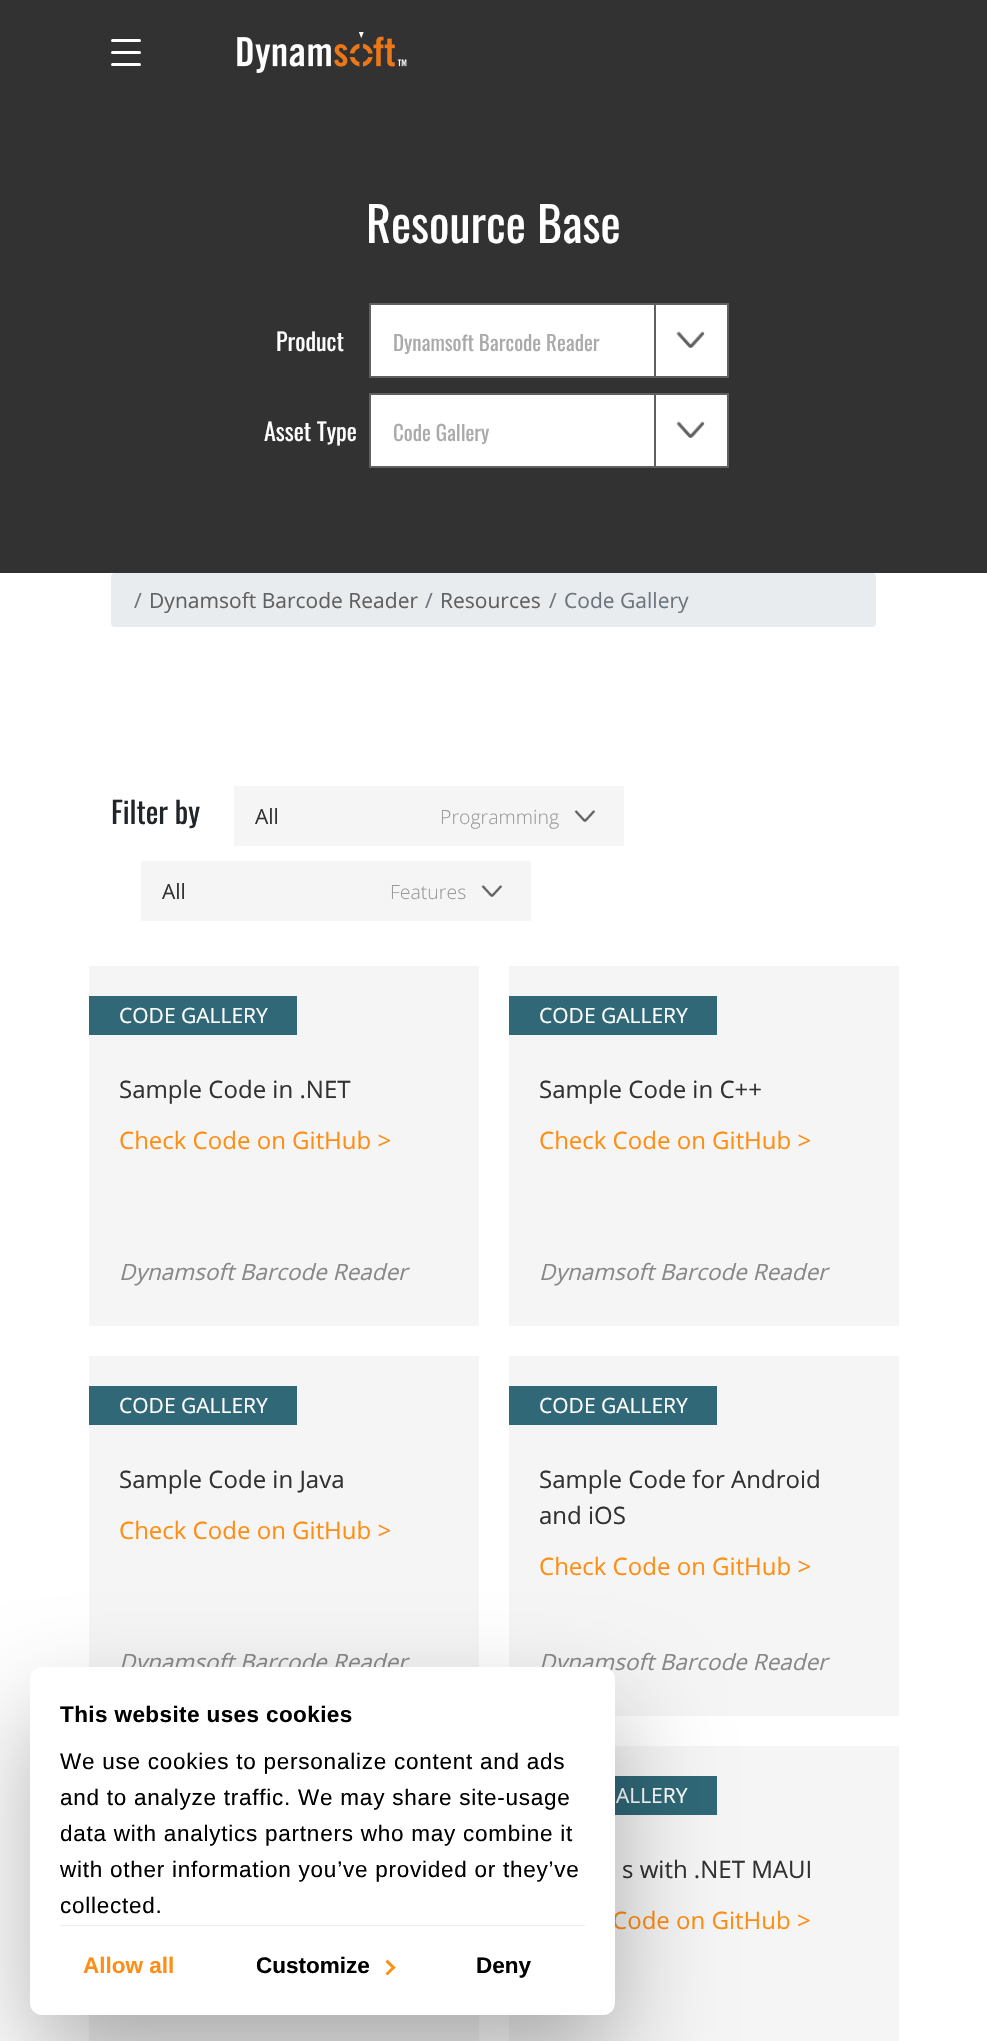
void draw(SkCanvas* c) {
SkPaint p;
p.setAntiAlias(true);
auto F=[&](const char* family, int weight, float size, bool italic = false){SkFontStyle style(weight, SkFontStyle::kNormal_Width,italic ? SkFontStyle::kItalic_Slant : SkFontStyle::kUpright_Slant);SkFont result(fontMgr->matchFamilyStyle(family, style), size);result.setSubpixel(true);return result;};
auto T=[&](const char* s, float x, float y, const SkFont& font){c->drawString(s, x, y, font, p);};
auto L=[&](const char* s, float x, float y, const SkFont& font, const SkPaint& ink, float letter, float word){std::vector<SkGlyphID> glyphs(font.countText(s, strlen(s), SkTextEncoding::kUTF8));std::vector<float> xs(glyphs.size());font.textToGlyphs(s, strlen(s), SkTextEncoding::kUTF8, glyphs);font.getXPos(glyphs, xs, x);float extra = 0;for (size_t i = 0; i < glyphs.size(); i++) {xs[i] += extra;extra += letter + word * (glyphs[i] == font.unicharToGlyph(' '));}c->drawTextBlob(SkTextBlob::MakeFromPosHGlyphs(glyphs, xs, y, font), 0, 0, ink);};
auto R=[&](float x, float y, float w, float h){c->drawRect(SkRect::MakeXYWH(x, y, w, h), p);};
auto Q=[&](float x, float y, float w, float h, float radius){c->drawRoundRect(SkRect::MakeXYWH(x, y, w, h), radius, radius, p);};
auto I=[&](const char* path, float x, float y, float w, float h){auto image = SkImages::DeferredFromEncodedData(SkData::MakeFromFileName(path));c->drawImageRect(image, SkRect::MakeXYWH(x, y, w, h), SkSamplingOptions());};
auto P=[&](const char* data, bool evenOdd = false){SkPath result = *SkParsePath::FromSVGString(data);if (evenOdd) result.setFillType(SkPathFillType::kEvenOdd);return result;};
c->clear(0xffffffff);
p.setColor(0xff323232);
R(0,0,987,573);
p.setColor(0xffffffff);
Q(111,39,30,3,1.5);
Q(111,51,30,3,1.5);
Q(111,63,30,3,1.5);
I("1.png",237,32,170,41);
auto f1 = F("Oswald",400,48);
T("Resource Base",366,243,f1);
auto f2 = F("Oswald",400,24);
T("Product",276,351,f2);
c->drawRect(SkRect::MakeXYWH(370,304,358,73),p);
p.setStroke(true);
p.setStrokeWidth(2);
p.setColor(0xff606060);
c->drawRect(SkRect::MakeXYWH(370,304,358,73),p);
auto f3 = F("Oswald",400,21);
p.setStroke(false);
p.setColor(0xffaaaaaa);
T("Dynamsoft Barcode Reader",393,351,f3);
p.setStroke(true);
p.setColor(0xff606060);
c->drawRect(SkRect::MakeXYWH(655,304,73,73),p);
I("2.png",676,331,29,17);
p.setStroke(false);
p.setColor(0xffffffff);
T("Asset Type",264,441,f2);
c->drawRect(SkRect::MakeXYWH(370,394,358,73),p);
p.setStroke(true);
p.setColor(0xff606060);
c->drawRect(SkRect::MakeXYWH(370,394,358,73),p);
p.setStroke(false);
p.setColor(0xffaaaaaa);
T("Code Gallery",393,441,f3);
p.setStroke(true);
p.setColor(0xff606060);
c->drawRect(SkRect::MakeXYWH(655,394,73,73),p);
I("2.png",676,421,29,17);
p.setStroke(false);
p.setColor(0xffe9ecef);
Q(111,573,765,54,4);
auto f4 = F("Open Sans",400,21);
p.setColor(0xff6c757d);
T("/",134,608,f4);
p.setColor(0xff606060);
T("Dynamsoft Barcode Reader",149,608,f4);
p.setColor(0xff6c757d);
T("/",425,608,f4);
p.setColor(0xff606060);
T("Resources",440,608,f4);
p.setColor(0xff6c757d);
T("/",549,608,f4);
T("Code Gallery",564,608,f4);
auto f5 = F("Oswald",400,30);
p.setColor(0xff212529);
T("Filter by",111,824,f5);
p.setColor(0xfff5f5f5);
R(234,786,390,60);
p.setColor(0xff323234);
T("All",255,824,f4);
auto f6 = F("Open Sans",300,19.5);
p.setColor(0xff999999);
T("Programming",440,824,f6);
I("3.png",574,810,22,12);
p.setColor(0xfff5f5f5);
R(141,861,390,60);
p.setColor(0xff323234);
T("All",162,899,f4);
p.setColor(0xff999999);
T("Features",390,899,f6);
I("3.png",481,885,22,12);
p.setColor(0xfff5f5f5);
R(89,966,390,360);
p.setColor(0xff306877);
R(89,996,208,39);
p.setColor(0xffffffff);
T("CODE GALLERY",119,1023,f4);
auto f7 = F("Open Sans",400,24);
p.setColor(0xff323234);
T("Sample Code in .NET",119,1098,f7);
p.setColor(0xfffe8e14);
T("Check Code on GitHub >",119,1149,f7);
auto f8 = F("Open Sans",400,22.5,true);
p.setColor(0xff888888);
T("Dynamsoft Barcode Reader",119,1280,f8);
p.setColor(0xfff5f5f5);
R(509,966,390,360);
p.setColor(0xff306877);
R(509,996,208,39);
p.setColor(0xffffffff);
T("CODE GALLERY",539,1023,f4);
p.setColor(0xff323234);
T("Sample Code in C++",539,1098,f7);
p.setColor(0xfffe8e14);
T("Check Code on GitHub >",539,1149,f7);
p.setColor(0xff888888);
T("Dynamsoft Barcode Reader",539,1280,f8);
p.setColor(0xfff5f5f5);
R(89,1356,390,311);
p.setColor(0xff306877);
R(89,1386,208,39);
p.setColor(0xffffffff);
T("CODE GALLERY",119,1413,f4);
p.setColor(0xff323234);
T("Sample Code in Java",119,1488,f7);
p.setColor(0xfffe8e14);
T("Check Code on GitHub >",119,1539,f7);
p.setColor(0xff888888);
T("Dynamsoft Barcode Reader",119,1670,f8);
p.setColor(0xfff5f5f5);
R(509,1356,390,360);
p.setColor(0xff306877);
R(509,1386,208,39);
p.setColor(0xffffffff);
T("CODE GALLERY",539,1413,f4);
p.setColor(0xff323234);
T("Sample Code for Android",539,1488,f7);
T("and iOS",539,1524,f7);
p.setColor(0xfffe8e14);
T("Check Code on GitHub >",539,1575,f7);
p.setColor(0xff888888);
T("Dynamsoft Barcode Reader",539,1670,f8);
p.setColor(0xfff5f5f5);
R(509,1746,390,295);
p.setColor(0xff306877);
R(615,1776,102,39);
p.setColor(0xffffffff);
T("ALLERY",616,1803,f4);
p.setColor(0xff323234);
T("s with .NET MAUI",622,1878,f7);
p.setColor(0xfffe8e14);
T("Code on GitHub >",612,1929,f7);
p.setColor(0xfff5f5f5);
R(89,2015,390,26);
p.setColor(0x4d000000);
p.setMaskFilter(SkMaskFilter::MakeBlur(kNormal_SkBlurStyle, 51));
c->drawRoundRect(SkRect::MakeXYWH(30,1715,585,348),12,12,p);
p.setMaskFilter(nullptr);
p.setColor(0xffffffff);
Q(30,1667,585,348,12);
p.setColor(0xffeeeeee);
R(60,1925,525,1);
auto f9 = F("Liberation Sans",700,22.5);
p.setColor(0xff000000);
L("This website uses cookies",60,1722,f9,p,.4,0);
auto f10 = F("Liberation Sans",400,22.5);
L("We use cookies to personalize content and ads",60,1769,f10,p,.75,0);
L("and to analyze traffic. We may share site-usage",60,1805,f10,p,.75,0);
L("data with analytics partners who may combine it",60,1841,f10,p,.75,0);
L("with other information you’ve provided or they’ve",60,1877,f10,p,.75,0);
L("collected.",60,1913,f10,p,.75,0);
p.setColor(0xfffe8e14);
T("Allow all",83,1973,f9);
p.setColor(0xff000000);
T("Customize",256,1973,f9);
p.setColor(0xfffe8e14);
c->drawPath(P("M387.5 1959.5l8 8l-2 2l-8-7.5z"),p);
c->drawPath(P("M393.5 1965.5l2 2l-8 8l-2-2z"),p);
p.setColor(0xff000000);
T("Deny",476,1973,f9);
}
